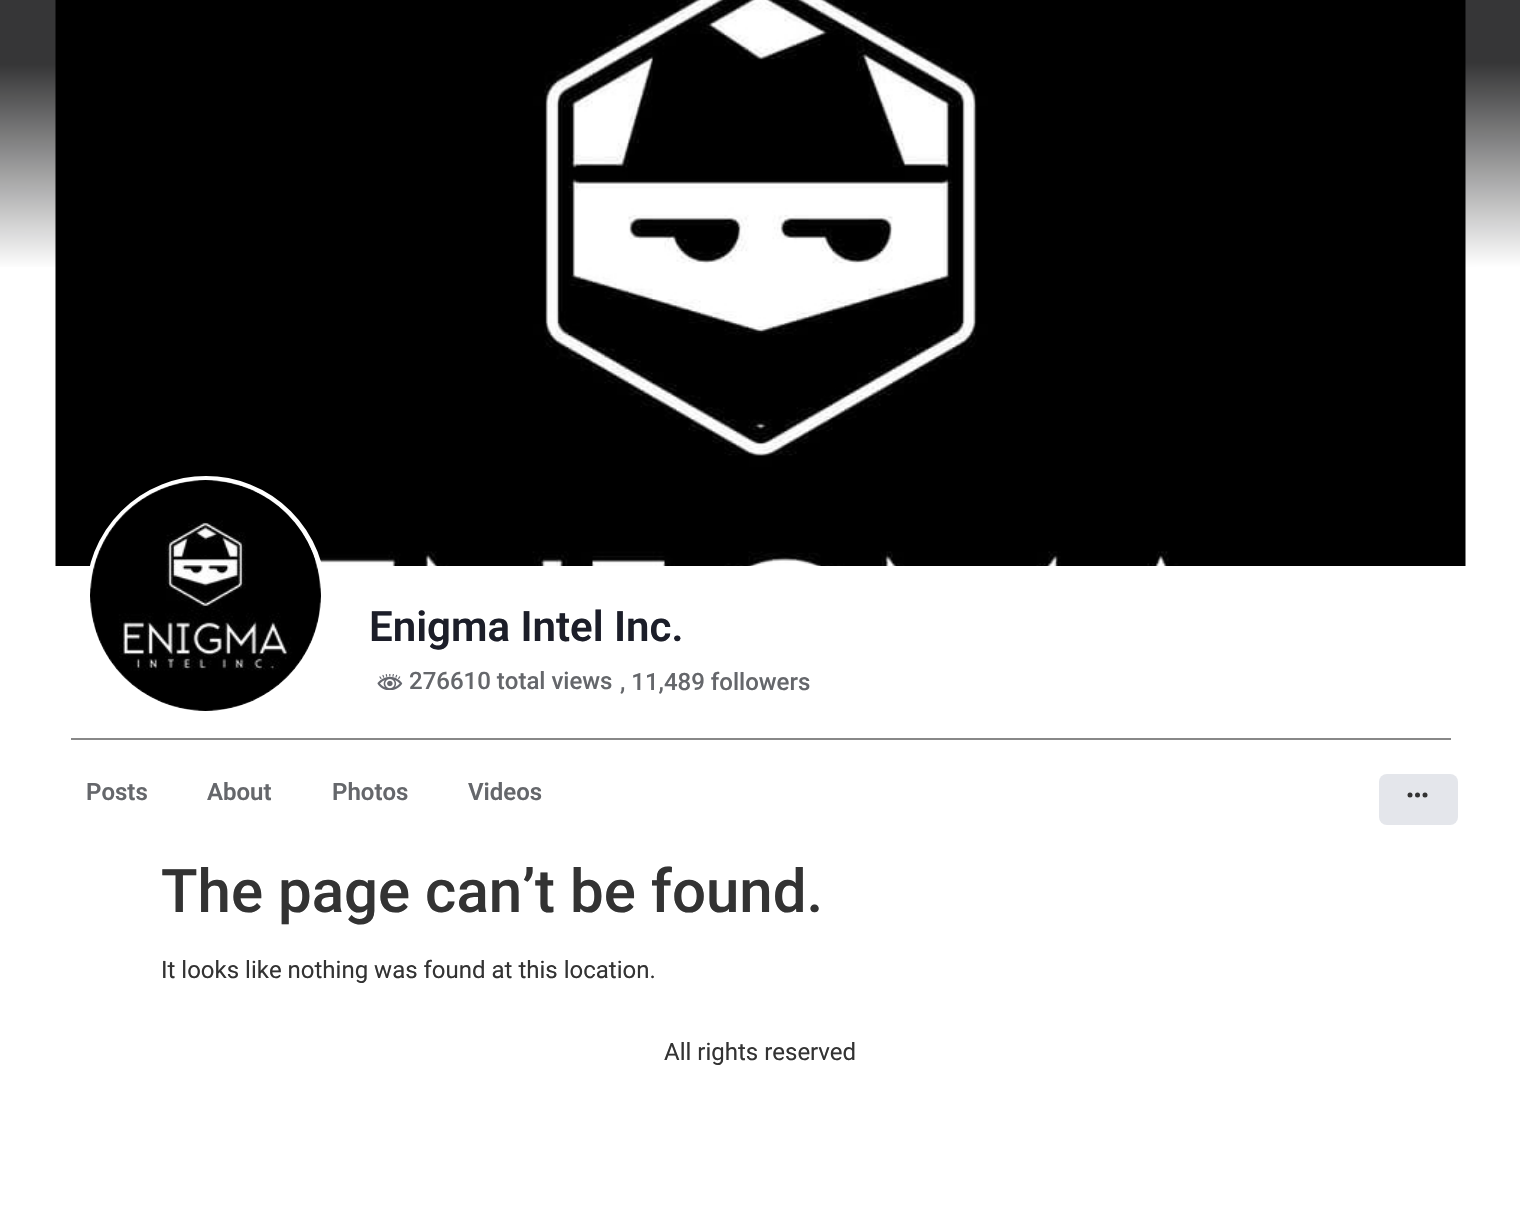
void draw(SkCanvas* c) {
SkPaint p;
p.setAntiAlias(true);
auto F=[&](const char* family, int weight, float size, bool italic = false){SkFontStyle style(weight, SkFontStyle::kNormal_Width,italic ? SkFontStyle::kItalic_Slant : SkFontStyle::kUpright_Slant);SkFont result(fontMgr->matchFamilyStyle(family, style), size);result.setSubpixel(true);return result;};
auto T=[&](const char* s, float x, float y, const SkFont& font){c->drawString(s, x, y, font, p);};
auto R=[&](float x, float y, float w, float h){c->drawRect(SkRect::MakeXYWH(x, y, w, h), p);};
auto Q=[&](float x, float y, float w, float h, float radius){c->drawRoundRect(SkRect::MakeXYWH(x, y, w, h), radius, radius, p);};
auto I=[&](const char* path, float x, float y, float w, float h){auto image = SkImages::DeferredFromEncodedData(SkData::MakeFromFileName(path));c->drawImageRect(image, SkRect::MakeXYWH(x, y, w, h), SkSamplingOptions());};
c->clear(0xffffffff);
{
const SkColor colors[] = {0xff363637,0xffffffff};
const float stops[] = {.08,.34};
const SkPoint ends[] = {{760,0}, {761,791}};
p.setShader(SkGradientShader::MakeLinear(ends, colors, stops, 2, SkTileMode::kClamp));
p.setAlpha(255);
}
R(0,0,1520,267);
I("1.png",55,0,1411,566);
p.setShader(nullptr);
p.setColor(0xff888888);
R(71,738,1380,2);
p.setStroke(true);
p.setStrokeWidth(5);
p.setColor(0xffffffff);
c->drawCircle(206,596,117.5,p);
I("2.png",90,480,231,231);
auto f1 = F("Roboto",600,42);
p.setStroke(false);
p.setColor(0xff1c1e29);
T("Enigma Intel Inc.",369,641,f1);
I("3.png",377,674,26,16);
auto f2 = F("Roboto",500,24);
p.setColor(0xff65676b);
T("276610 total views",409,689,f2);
T(", 11,489 followers",620,690,f2);
auto f3 = F("Roboto",600,24);
T("Posts",86,800,f3);
T("About",207,800,f3);
T("Photos",332,800,f3);
T("Videos",468,800,f3);
p.setColor(0xffe4e6eb);
Q(1379,774,79,51,8);
p.setColor(0xff333333);
c->drawCircle(1410,795,2.5,p);
c->drawCircle(1417.5,795,2.5,p);
c->drawCircle(1425,795,2.5,p);
auto f4 = F("Roboto",500,60);
T("The page can’t be found.",161,912,f4);
auto f5 = F("Roboto",400,24);
T("It looks like nothing was found at this location.",161,978,f5);
T("All rights reserved",664,1060,f5);
}
